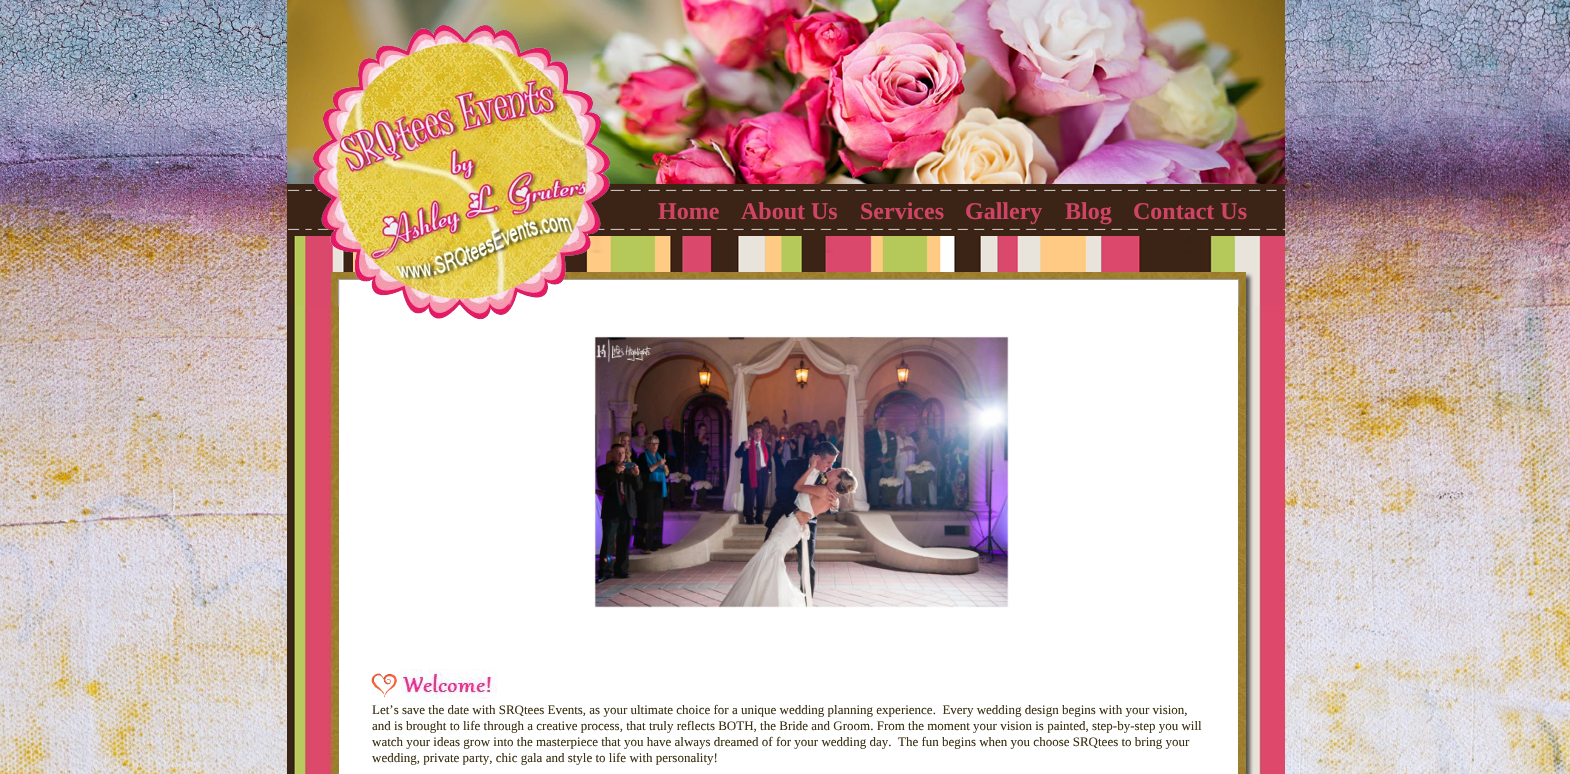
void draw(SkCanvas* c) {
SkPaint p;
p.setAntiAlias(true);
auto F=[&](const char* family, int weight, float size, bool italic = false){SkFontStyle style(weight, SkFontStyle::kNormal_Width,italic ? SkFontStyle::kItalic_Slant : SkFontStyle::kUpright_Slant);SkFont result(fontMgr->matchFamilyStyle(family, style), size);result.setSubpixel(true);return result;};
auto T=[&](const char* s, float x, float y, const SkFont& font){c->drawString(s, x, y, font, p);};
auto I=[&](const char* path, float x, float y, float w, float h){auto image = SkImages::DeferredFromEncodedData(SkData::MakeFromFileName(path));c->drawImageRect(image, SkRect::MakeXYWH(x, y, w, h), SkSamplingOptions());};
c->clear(0xffffffff);
I("1.png",0,0,1570,774);
I("2.png",287,0,998,774);
auto f1 = F("Liberation Serif",700,24);
p.setColor(0xffcf4364);
T("Home",658,219,f1);
T("About Us",741,219,f1);
T("Services",860,219,f1);
T("Gallery",965,219,f1);
T("Blog",1065,219,f1);
T("Contact Us",1133,219,f1);
I("3.png",594,336,415,272);
I("4.png",371,673,26,25);
I("5.png",401,669,96,30);
auto f2 = F("Liberation Serif",400,13);
p.setColor(0xff3c3215);
T("Let’s save the date with SRQtees Events, as your ultimate choice for a unique wedding planning experience.  Every wedding design begins with your vision,",372,714,f2);
T("and is brought to life through a creative process, that truly reflects BOTH, the Bride and Groom. From the moment your vision is painted, step-by-step you will",372,730,f2);
T("watch your ideas grow into the masterpiece that you have always dreamed of for your wedding day.  The fun begins when you choose SRQtees to bring your",372,746,f2);
T("wedding, private party, chic gala and style to life with personality!",372,762,f2);
}
